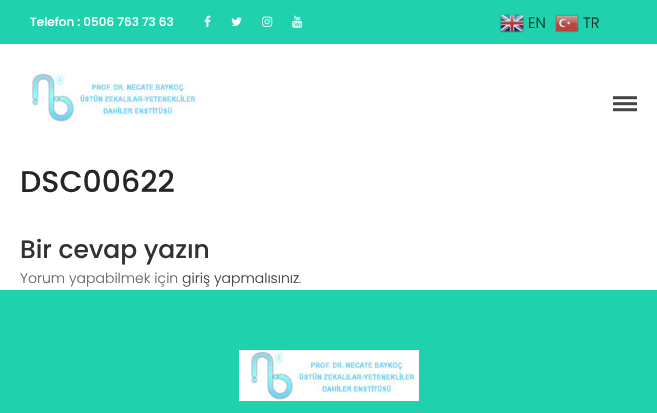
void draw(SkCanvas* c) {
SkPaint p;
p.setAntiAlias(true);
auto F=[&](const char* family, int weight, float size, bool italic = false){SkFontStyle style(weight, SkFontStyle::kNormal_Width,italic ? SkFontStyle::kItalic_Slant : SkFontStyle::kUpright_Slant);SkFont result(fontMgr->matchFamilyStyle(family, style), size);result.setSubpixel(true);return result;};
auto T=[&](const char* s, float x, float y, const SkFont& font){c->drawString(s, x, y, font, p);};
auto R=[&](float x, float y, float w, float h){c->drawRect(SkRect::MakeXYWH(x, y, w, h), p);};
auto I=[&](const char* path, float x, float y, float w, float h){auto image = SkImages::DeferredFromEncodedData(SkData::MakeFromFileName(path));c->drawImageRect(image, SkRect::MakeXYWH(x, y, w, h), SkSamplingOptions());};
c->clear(0xffffffff);
p.setColor(0xff1fd1ad);
R(0,0,657,44);
auto f1 = F("Poppins",500,12);
p.setColor(0xffffffff);
T("Telefon : 0506 763 73 63",30,26,f1);
I("1.png",204,15,7,12);
I("2.png",231,17,11,9);
I("3.png",262,16,11,11);
I("4.png",292,15,11,13);
I("5.png",31,72,168,50);
I("6.png",613,96,24,16);
auto f2 = F("Poppins",500,30);
p.setColor(0xff262626);
T("DSC00622",20,192,f2);
auto f3 = F("Poppins",500,25);
p.setColor(0xff323232);
T("Bir cevap yazın",20,258,f3);
auto f4 = F("Poppins",300,14);
p.setColor(0xff666666);
T("Yorum yapabilmek için",20,283,f4);
p.setColor(0xff404040);
T("giriş yapmalısınız",182,283,f4);
p.setColor(0xff666666);
T(".",299,283,f4);
p.setColor(0xff1fd1ad);
R(0,290,657,123);
I("7.png",239,350,180,51);
I("8.png",500,14,24,19);
auto f5 = F("Poppins",300,15);
p.setColor(0xff08342b);
T("EN",528,28,f5);
I("9.png",555,14,24,19);
T("TR",583,28,f5);
}
